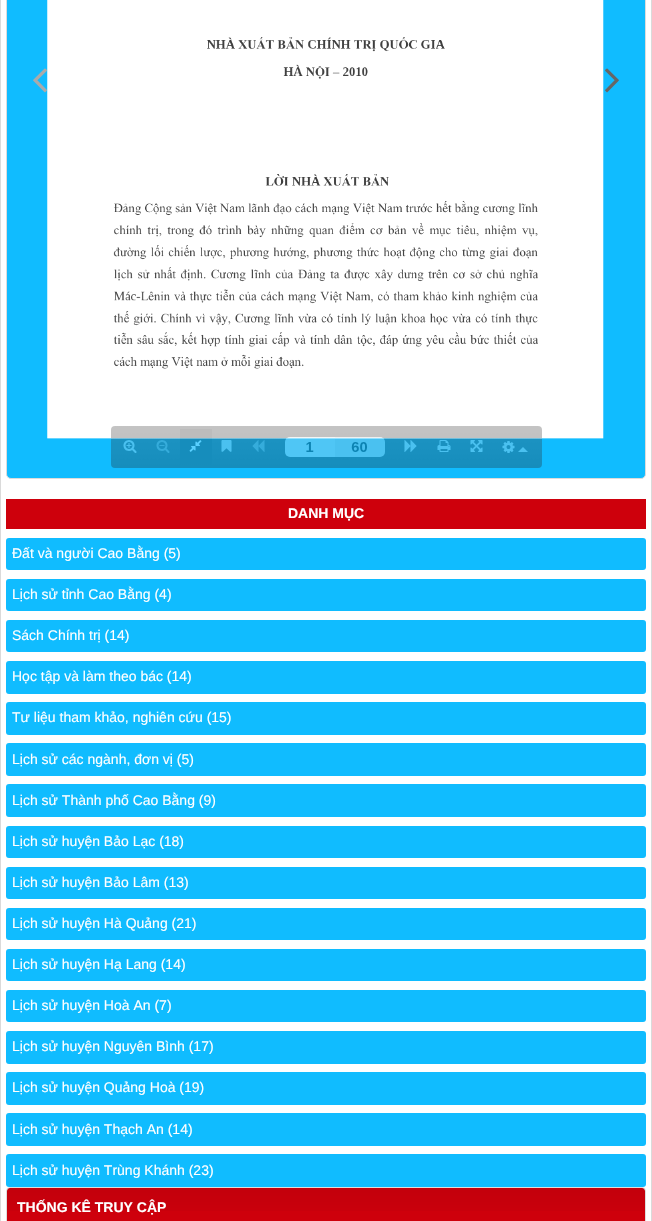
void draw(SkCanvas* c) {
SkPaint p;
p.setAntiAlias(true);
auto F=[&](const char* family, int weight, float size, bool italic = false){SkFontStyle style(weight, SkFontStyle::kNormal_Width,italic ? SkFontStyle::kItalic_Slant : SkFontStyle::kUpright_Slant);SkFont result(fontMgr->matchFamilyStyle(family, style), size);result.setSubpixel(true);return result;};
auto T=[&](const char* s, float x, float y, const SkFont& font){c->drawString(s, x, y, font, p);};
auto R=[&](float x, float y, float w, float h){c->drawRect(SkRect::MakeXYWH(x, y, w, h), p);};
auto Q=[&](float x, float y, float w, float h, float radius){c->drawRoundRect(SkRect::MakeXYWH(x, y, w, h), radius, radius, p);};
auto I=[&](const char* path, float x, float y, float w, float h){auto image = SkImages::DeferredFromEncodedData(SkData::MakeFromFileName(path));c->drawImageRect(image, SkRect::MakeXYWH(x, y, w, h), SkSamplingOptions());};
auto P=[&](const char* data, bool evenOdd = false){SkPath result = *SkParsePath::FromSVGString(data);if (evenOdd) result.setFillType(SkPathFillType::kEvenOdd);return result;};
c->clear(0xffffffff);
p.setColor(0xffdadada);
R(651,0,1,1221);
R(0,0,1,1221);
p.setColor(0xff10bcff);
c->drawRoundRect(SkRect::MakeXYWH(6.5,-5.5,639,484),4.5,4.5,p);
p.setStroke(true);
p.setStrokeWidth(1);
p.setColor(0xffdcdcdc);
c->drawRoundRect(SkRect::MakeXYWH(6.5,-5.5,639,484),4.5,4.5,p);
I("1.png",33,0,586,468);
p.setStroke(false);
p.setColor(0xffce000c);
R(6,499,640,30);
auto f1 = F("Liberation Sans",700,14);
p.setColor(0xffffffff);
T("DANH MỤC",288,518,f1);
p.setColor(0xff10bcff);
Q(6,538,640,32,3);
auto f2 = F("Liberation Sans",400,14);
p.setColor(0xffffffff);
T("Đất và người Cao Bằng (5)",12,558,f2);
p.setColor(0xff10bcff);
Q(6,579,640,32,3);
p.setColor(0xffffffff);
T("Lịch sử tỉnh Cao Bằng (4)",12,599,f2);
p.setColor(0xff10bcff);
Q(6,620,640,32,3);
p.setColor(0xffffffff);
T("Sách Chính trị (14)",12,640,f2);
p.setColor(0xff10bcff);
Q(6,661,640,33,3);
p.setColor(0xffffffff);
T("Học tập và làm theo bác (14)",12,681,f2);
p.setColor(0xff10bcff);
Q(6,702,640,33,3);
p.setColor(0xffffffff);
T("Tư liệu tham khảo, nghiên cứu (15)",12,722,f2);
p.setColor(0xff10bcff);
Q(6,743,640,33,3);
p.setColor(0xffffffff);
T("Lịch sử các ngành, đơn vị (5)",12,764,f2);
p.setColor(0xff10bcff);
Q(6,784,640,33,3);
p.setColor(0xffffffff);
T("Lịch sử Thành phố Cao Bằng (9)",12,805,f2);
p.setColor(0xff10bcff);
Q(6,826,640,32,3);
p.setColor(0xffffffff);
T("Lịch sử huyện Bảo Lạc (18)",12,846,f2);
p.setColor(0xff10bcff);
Q(6,867,640,32,3);
p.setColor(0xffffffff);
T("Lịch sử huyện Bảo Lâm (13)",12,887,f2);
p.setColor(0xff10bcff);
Q(6,908,640,32,3);
p.setColor(0xffffffff);
T("Lịch sử huyện Hà Quảng (21)",12,928,f2);
p.setColor(0xff10bcff);
Q(6,949,640,32,3);
p.setColor(0xffffffff);
T("Lịch sử huyện Hạ Lang (14)",12,969,f2);
p.setColor(0xff10bcff);
Q(6,990,640,32,3);
p.setColor(0xffffffff);
T("Lịch sử huyện Hoà An (7)",12,1010,f2);
p.setColor(0xff10bcff);
Q(6,1031,640,33,3);
p.setColor(0xffffffff);
T("Lịch sử huyện Nguyên Bình (17)",12,1051,f2);
p.setColor(0xff10bcff);
Q(6,1072,640,33,3);
p.setColor(0xffffffff);
T("Lịch sử huyện Quảng Hoà (19)",12,1092,f2);
p.setColor(0xff10bcff);
Q(6,1113,640,33,3);
p.setColor(0xffffffff);
T("Lịch sử huyện Thạch An (14)",12,1134,f2);
p.setColor(0xff10bcff);
Q(6,1154,640,33,3);
p.setColor(0xffffffff);
T("Lịch sử huyện Trùng Khánh (23)",12,1175,f2);
p.setStroke(true);
p.setColor(0xffdddddd);
c->drawRoundRect(SkRect::MakeXYWH(6.5,1187.5,639,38),3.5,3.5,p);
p.setStroke(false);
p.setColor(0xffce000c);
c->drawPath(P("M10 1188h632c1.5 0 3 1.5 3 3v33h-638v-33c0-1.5 1.5-3 3-3z"),p);
{
const SkColor colors[] = {0x0d000000,0x00000000};
const float stops[] = {0,1};
const SkPoint ends[] = {{326,1188}, {326,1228}};
p.setShader(SkGradientShader::MakeLinear(ends, colors, stops, 2, SkTileMode::kClamp));
p.setAlpha(255);
}
R(7,1188,638,23);
p.setShader(nullptr);
p.setColor(0xffffffff);
T("THỐNG KÊ TRUY CẬP",17,1212,f1);
}
